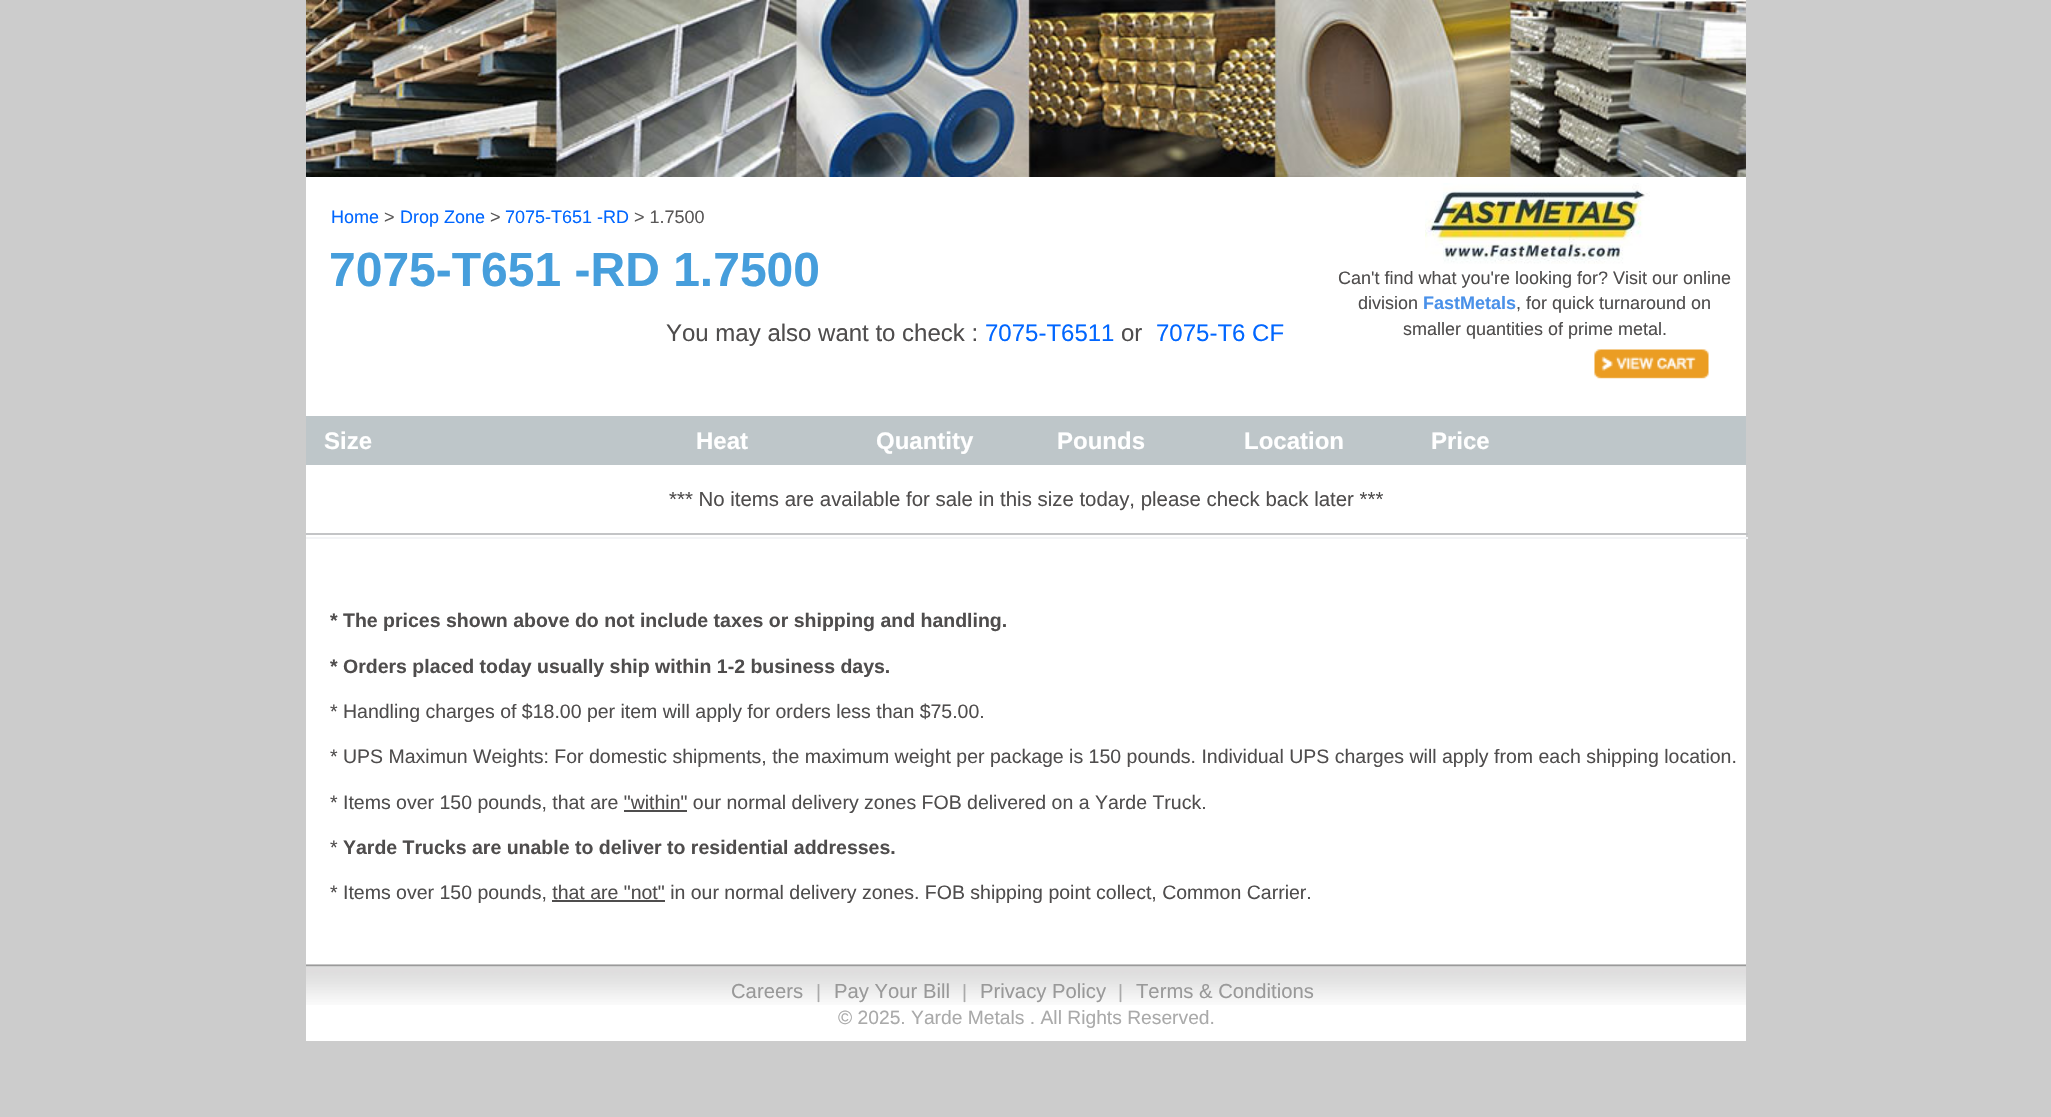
void draw(SkCanvas* c) {
SkPaint p;
p.setAntiAlias(true);
auto F=[&](const char* family, int weight, float size, bool italic = false){SkFontStyle style(weight, SkFontStyle::kNormal_Width,italic ? SkFontStyle::kItalic_Slant : SkFontStyle::kUpright_Slant);SkFont result(fontMgr->matchFamilyStyle(family, style), size);result.setSubpixel(true);return result;};
auto T=[&](const char* s, float x, float y, const SkFont& font){c->drawString(s, x, y, font, p);};
auto R=[&](float x, float y, float w, float h){c->drawRect(SkRect::MakeXYWH(x, y, w, h), p);};
auto I=[&](const char* path, float x, float y, float w, float h){auto image = SkImages::DeferredFromEncodedData(SkData::MakeFromFileName(path));c->drawImageRect(image, SkRect::MakeXYWH(x, y, w, h), SkSamplingOptions());};
c->clear(0xffcccccc);
p.setColor(0xffffffff);
R(306,177,1440,788);
I("1.png",306,0,1440,177);
auto f1 = F("Liberation Sans",400,18);
p.setColor(0xff0066ff);
T("Home",331,223,f1);
p.setColor(0xff5a5858);
T(">",384,223,f1);
p.setColor(0xff0066ff);
T("Drop Zone",400,223,f1);
p.setColor(0xff5a5858);
T(">",490,223,f1);
p.setColor(0xff0066ff);
T("7075-T651 -RD",505,223,f1);
p.setColor(0xff5a5858);
T("> 1.7500",634,223,f1);
auto f2 = F("Liberation Sans",700,48);
p.setColor(0xff469edc);
T("7075-T651 -RD 1.7500",329,286,f2);
auto f3 = F("Liberation Sans",400,24);
p.setColor(0xff4f4d4d);
T("You may also want to check :",666,341,f3);
p.setColor(0xff0066ff);
T("7075-T6511",985,341,f3);
p.setColor(0xff4f4d4d);
T("or",1121,341,f3);
p.setColor(0xff0066ff);
T("7075-T6 CF",1156,341,f3);
I("2.png",1425,183,225,81);
p.setColor(0xff4f4d4d);
T("Can't find what you're looking for? Visit our online",1338,284,f1);
T("division",1358,309,f1);
auto f4 = F("Liberation Sans",700,18);
p.setColor(0xff4a91e9);
T("FastMetals",1423,309,f4);
p.setColor(0xff4f4d4d);
T(", for quick turnaround on",1516,309,f1);
T("smaller quantities of prime metal.",1403,335,f1);
I("3.png",1594,349,115,30);
p.setColor(0xffbec6c9);
R(306,416,1440,49);
auto f5 = F("Liberation Sans",700,24);
p.setColor(0xffffffff);
T("Size",324,449,f5);
T("Heat",696,449,f5);
T("Quantity",876,449,f5);
T("Pounds",1057,449,f5);
T("Location",1244,449,f5);
T("Price",1431,449,f5);
p.setColor(0xffc3c4c6);
R(306,533,1442,2);
auto f6 = F("Liberation Sans",400,20.4);
p.setColor(0xff4f4d4d);
T("*** No items are available for sale in this size today, please check back later ***",669,506,f6);
p.setColor(0xfff3f4f6);
R(306,537,1442,2);
auto f7 = F("Liberation Sans",700,19.5);
p.setColor(0xff4f4d4d);
T("* The prices shown above do not include taxes or shipping and handling.",330,627,f7);
T("* Orders placed today usually ship within 1-2 business days.",330,673,f7);
auto f8 = F("Liberation Sans",400,19.5);
T("* Handling charges of $18.00 per item will apply for orders less than $75.00.",330,718,f8);
T("* UPS Maximun Weights: For domestic shipments, the maximum weight per package is 150 pounds. Individual UPS charges will apply from each shipping location.",330,763,f8);
T("* Items over 150 pounds, that are \"within\" our normal delivery zones FOB delivered on a Yarde Truck.",330,809,f8);
R(624,810,63,2);
T("*",330,854,f8);
T("Yarde Trucks are unable to deliver to residential addresses.",343,854,f7);
T("* Items over 150 pounds, that are \"not\" in our normal delivery zones. FOB shipping point collect, Common Carrier.",330,899,f8);
R(552,900,113,2);
p.setColor(0xffffffff);
R(306,1005,1440,36);
I("4.png",306,964,1440,41);
auto f9 = F("Liberation Sans",400,20.25);
p.setColor(0xff999999);
T("Careers",731,998,f9);
auto f10 = F("Liberation Sans",400,19.25);
p.setColor(0xffaaaaaa);
T("|",816,998,f10);
p.setColor(0xff999999);
T("Pay Your Bill",834,998,f9);
p.setColor(0xffaaaaaa);
T("|",962,998,f10);
p.setColor(0xff999999);
T("Privacy Policy",980,998,f9);
p.setColor(0xffaaaaaa);
T("|",1118,998,f10);
p.setColor(0xff999999);
T("Terms & Conditions",1136,998,f9);
p.setColor(0xffaaaaaa);
T("© 2025. Yarde Metals . All Rights Reserved.",838,1024,f10);
}
